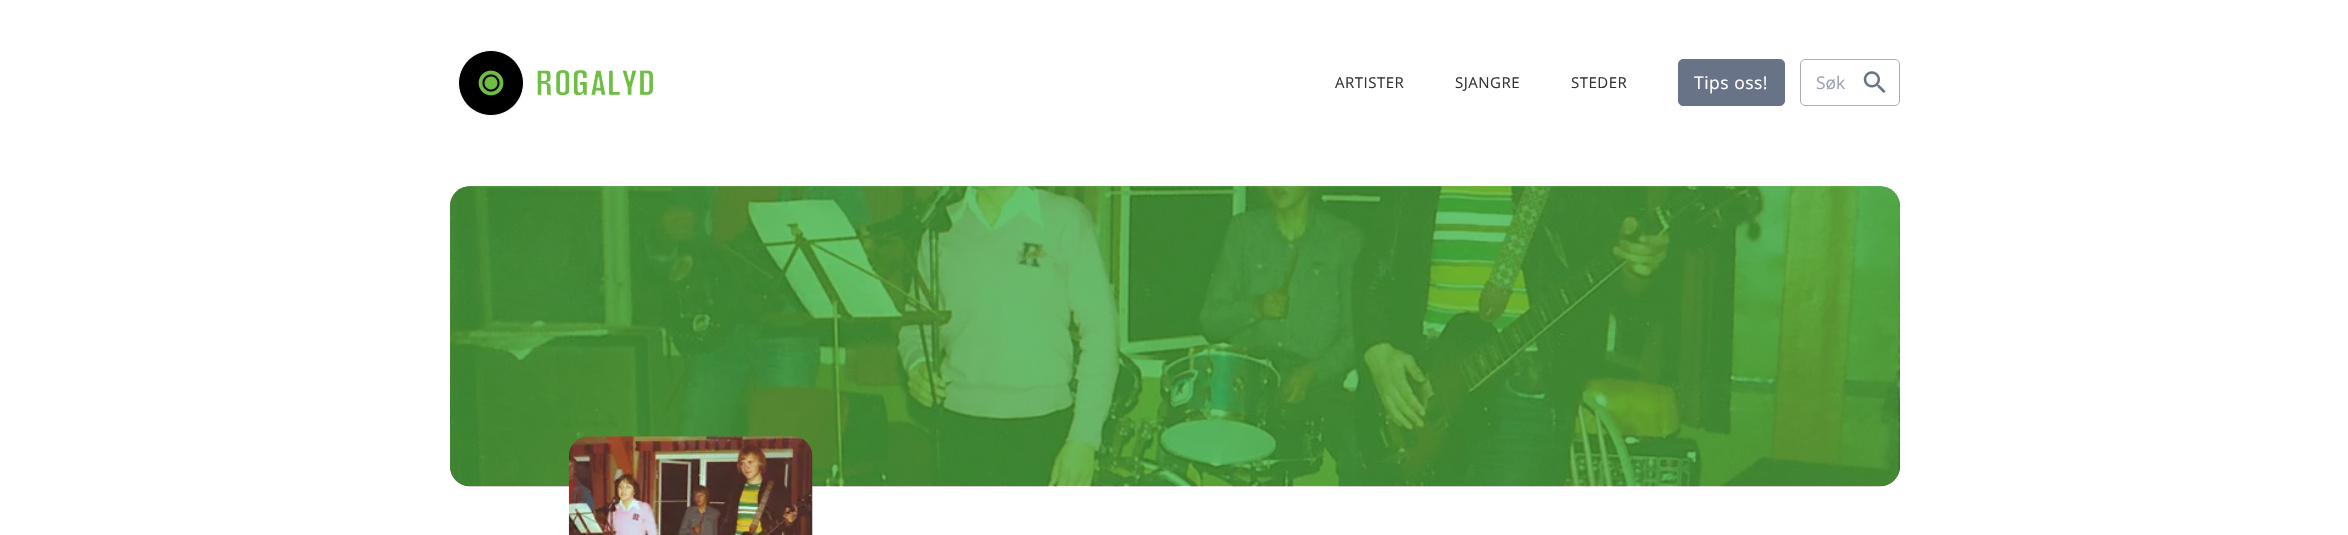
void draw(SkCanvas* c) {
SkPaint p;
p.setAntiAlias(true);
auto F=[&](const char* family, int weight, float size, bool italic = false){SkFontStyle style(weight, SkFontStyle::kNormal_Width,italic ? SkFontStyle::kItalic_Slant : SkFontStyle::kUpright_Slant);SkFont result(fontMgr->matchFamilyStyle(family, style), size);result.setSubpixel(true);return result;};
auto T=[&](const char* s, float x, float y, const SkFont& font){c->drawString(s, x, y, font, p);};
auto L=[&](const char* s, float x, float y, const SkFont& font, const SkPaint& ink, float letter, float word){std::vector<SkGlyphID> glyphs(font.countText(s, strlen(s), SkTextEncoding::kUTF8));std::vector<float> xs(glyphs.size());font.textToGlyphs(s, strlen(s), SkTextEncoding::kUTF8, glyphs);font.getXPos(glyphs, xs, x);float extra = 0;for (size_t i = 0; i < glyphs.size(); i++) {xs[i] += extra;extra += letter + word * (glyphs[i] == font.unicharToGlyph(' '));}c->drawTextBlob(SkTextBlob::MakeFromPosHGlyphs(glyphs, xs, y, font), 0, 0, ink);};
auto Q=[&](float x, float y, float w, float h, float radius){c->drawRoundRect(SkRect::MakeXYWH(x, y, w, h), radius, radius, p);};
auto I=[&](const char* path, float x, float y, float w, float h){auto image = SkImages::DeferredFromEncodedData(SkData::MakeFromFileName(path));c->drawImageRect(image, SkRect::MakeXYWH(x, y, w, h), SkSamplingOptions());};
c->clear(0xffffffff);
I("1.png",458,50,196,66);
auto f1 = F("Open Sans",400,15);
p.setColor(0xff333333);
L("ARTISTER",1335,88,f1,p,.5,0);
L("SJANGRE",1455,88,f1,p,.5,0);
L("STEDER",1571,88,f1,p,.5,0);
p.setColor(0xff697387);
c->drawRoundRect(SkRect::MakeXYWH(1678.5,59.5,106,46),4.5,4.5,p);
p.setStroke(true);
p.setStrokeWidth(1);
c->drawRoundRect(SkRect::MakeXYWH(1678.5,59.5,106,46),4.5,4.5,p);
auto f2 = F("Open Sans",400,17.5);
p.setStroke(false);
p.setColor(0xffffffff);
L("Tips oss!",1694,89,f2,p,.5,0);
I("2.png",1863,71,23,22);
p.setStroke(true);
p.setColor(0xffa9afba);
c->drawRoundRect(SkRect::MakeXYWH(1800.5,59.5,99,46),4.5,4.5,p);
p.setStroke(false);
p.setColor(0xff9ca3af);
T("Søk",1816,89,f2);
I("3.png",449,186,1451,301);
p.setColor(0xb33aaa35);
Q(450,186,1450,300,20);
I("4.png",568,436,245,99);
}
